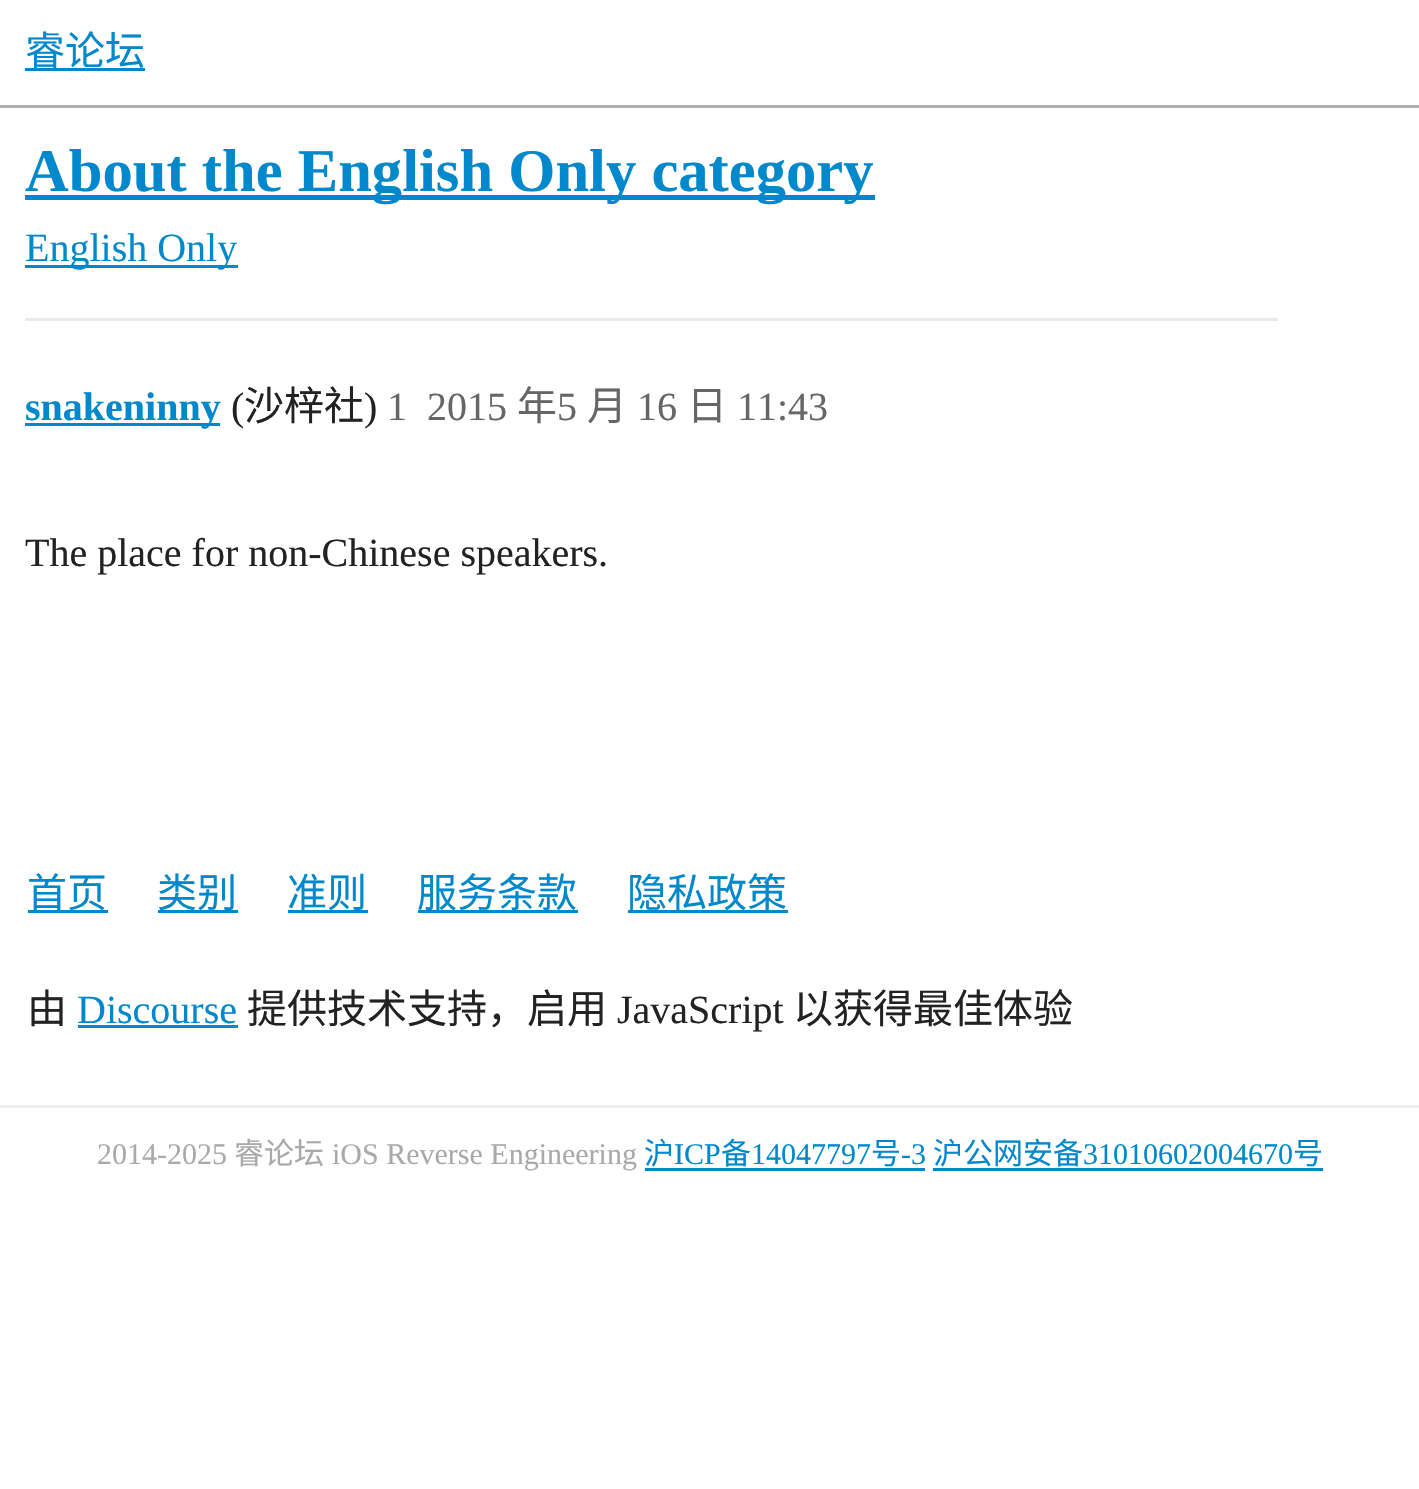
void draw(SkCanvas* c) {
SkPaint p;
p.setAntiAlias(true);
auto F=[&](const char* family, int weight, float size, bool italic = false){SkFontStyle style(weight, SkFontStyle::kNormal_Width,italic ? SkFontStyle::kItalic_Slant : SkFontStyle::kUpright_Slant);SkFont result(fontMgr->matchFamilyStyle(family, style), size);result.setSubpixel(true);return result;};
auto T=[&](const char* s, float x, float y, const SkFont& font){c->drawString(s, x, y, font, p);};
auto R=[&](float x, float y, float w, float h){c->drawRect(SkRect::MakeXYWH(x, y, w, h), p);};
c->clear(0xffffffff);
p.setColor(0xffafafaf);
R(0,105,1419,3);
p.setColor(0xff0088cc);
R(25,68,120,3);
auto f1 = F("Noto Sans CJK SC",400,40);
T("睿论坛",25,65,f1);
R(25,195,850,5);
auto f2 = F("Liberation Serif",700,60.6);
T("About the English Only category",25,191,f2);
R(25,265,213,3);
auto f3 = F("Liberation Serif",400,40);
T("English Only",25,261,f3);
p.setColor(0xffe9e9e9);
R(25,318,1253,3);
p.setColor(0xff0088cc);
R(25,423,195,3);
auto f4 = F("Liberation Serif",700,40);
T("snakeninny",25,420,f4);
p.setColor(0xff222222);
T("(",231,420,f3);
T("沙梓社",244,420,f1);
T(")",364,420,f3);
p.setColor(0xff666666);
T("1",387,420,f3);
T("2015",427,420,f3);
T("年",517,420,f1);
T("5",557,420,f3);
T("月",587,420,f1);
T("16",637,420,f3);
T("日",687,420,f1);
T("11:43",737,420,f3);
p.setColor(0xff222222);
T("The place for non-Chinese speakers.",25,566,f3);
p.setColor(0xff0088cc);
R(28,910,80,3);
T("首页",27,907,f1);
R(158,910,80,3);
T("类别",157,907,f1);
R(288,910,80,3);
T("准则",287,907,f1);
R(418,910,160,3);
T("服务条款",417,907,f1);
R(628,910,160,3);
T("隐私政策",627,907,f1);
p.setColor(0xff222222);
T("由",27,1023,f1);
p.setColor(0xff0088cc);
T("Discourse",77,1023,f3);
R(78,1025,160,3);
p.setColor(0xff222222);
T("提供技术支持，启用",247,1023,f1);
T("JavaScript",617,1023,f3);
T("以获得最佳体验",793,1023,f1);
p.setColor(0xffeeeeee);
R(0,1105,1419,3);
auto f5 = F("Liberation Serif",400,30);
p.setColor(0xffa9a9a9);
T("2014-2025",97,1164,f5);
auto f6 = F("Noto Sans CJK SC",400,30);
T("睿论坛",234,1164,f6);
T("iOS Reverse Engineering",332,1164,f5);
p.setColor(0xff0088cc);
T("沪",644,1164,f6);
T("ICP",674,1164,f5);
R(645,1168,280,3);
T("备",721,1164,f6);
T("14047797",751,1164,f5);
T("号",871,1164,f6);
T("-3",901,1164,f5);
T("沪公网安备",933,1164,f6);
T("31010602004670",1083,1164,f5);
R(933,1168,390,3);
T("号",1293,1164,f6);
}
